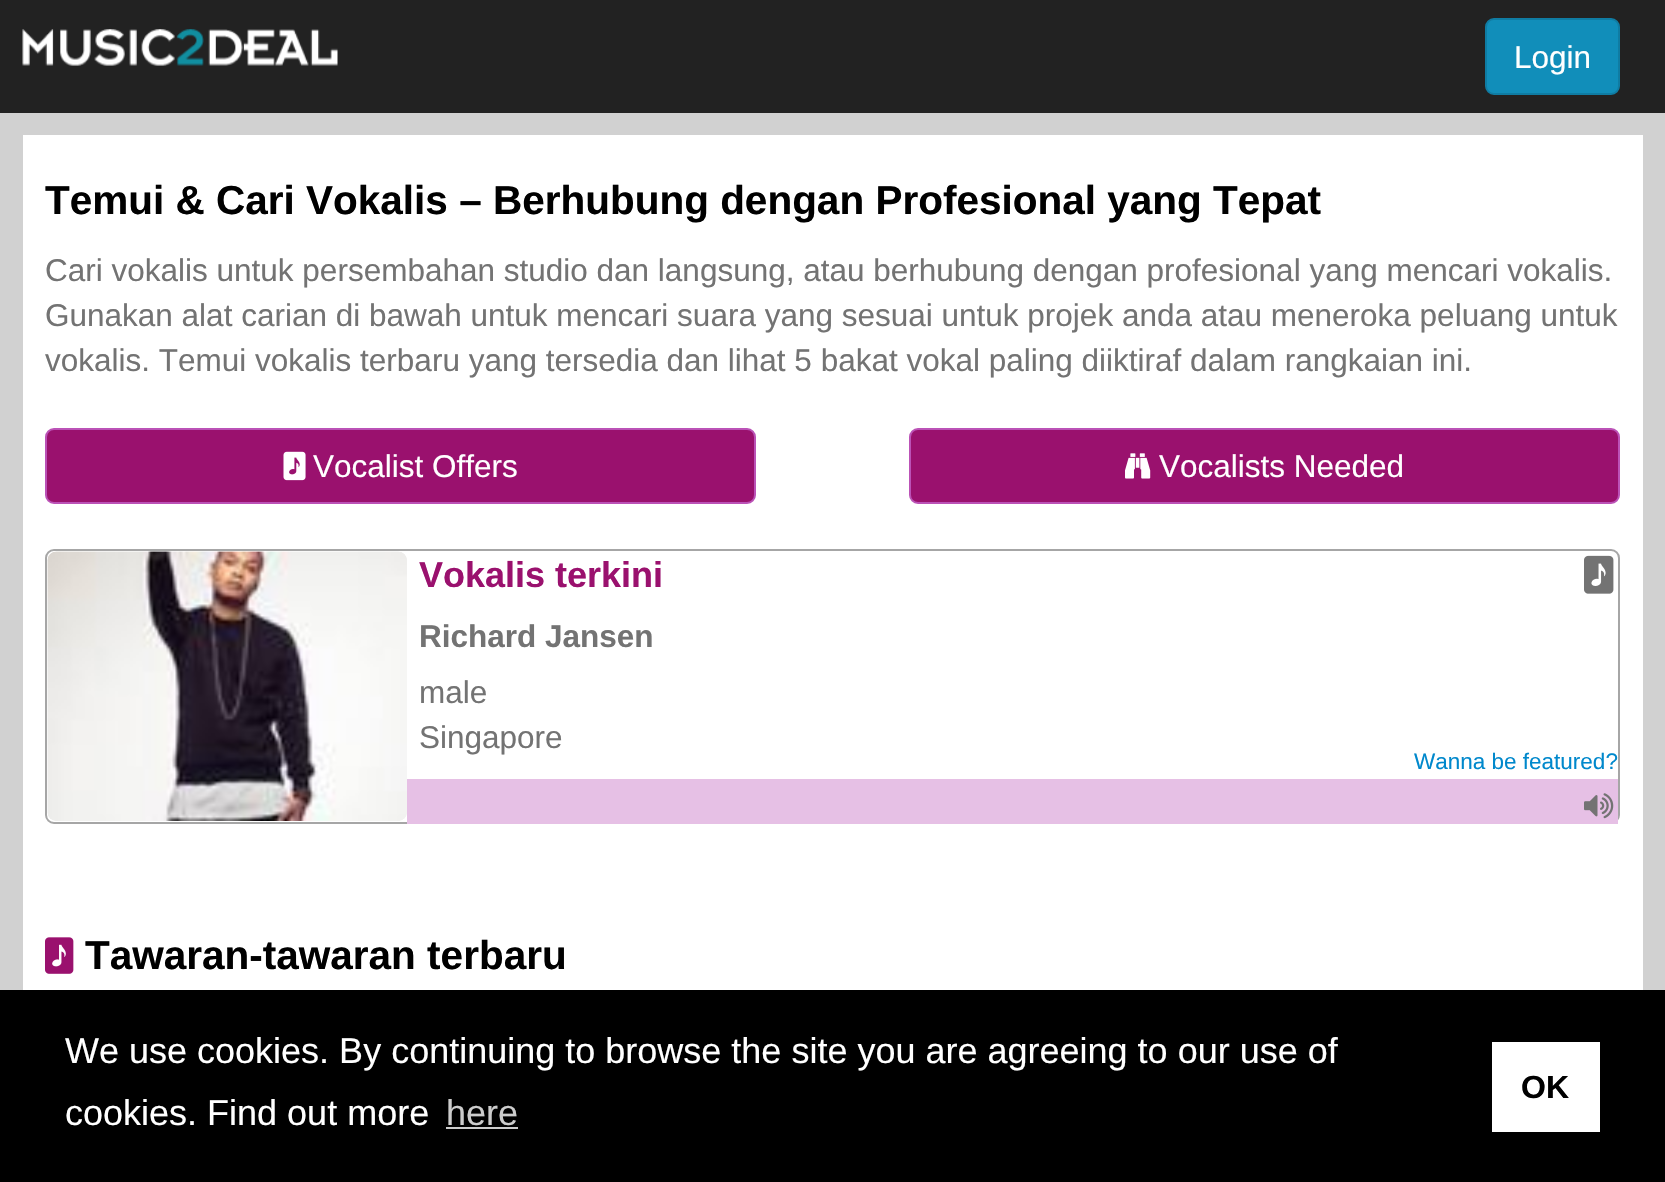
void draw(SkCanvas* c) {
SkPaint p;
p.setAntiAlias(true);
auto F=[&](const char* family, int weight, float size, bool italic = false){SkFontStyle style(weight, SkFontStyle::kNormal_Width,italic ? SkFontStyle::kItalic_Slant : SkFontStyle::kUpright_Slant);SkFont result(fontMgr->matchFamilyStyle(family, style), size);result.setSubpixel(true);return result;};
auto T=[&](const char* s, float x, float y, const SkFont& font){c->drawString(s, x, y, font, p);};
auto R=[&](float x, float y, float w, float h){c->drawRect(SkRect::MakeXYWH(x, y, w, h), p);};
auto Q=[&](float x, float y, float w, float h, float radius){c->drawRoundRect(SkRect::MakeXYWH(x, y, w, h), radius, radius, p);};
auto I=[&](const char* path, float x, float y, float w, float h){auto image = SkImages::DeferredFromEncodedData(SkData::MakeFromFileName(path));c->drawImageRect(image, SkRect::MakeXYWH(x, y, w, h), SkSamplingOptions());};
c->clear(0xffd1d1d1);
p.setColor(0xff222222);
R(0,0,1665,113);
I("1.png",22,29,316,37);
p.setColor(0xff118eba);
c->drawRoundRect(SkRect::MakeXYWH(1486,19,133,75),8,8,p);
p.setStroke(true);
p.setStrokeWidth(2);
p.setColor(0xff0f7ca3);
c->drawRoundRect(SkRect::MakeXYWH(1486,19,133,75),8,8,p);
auto f1 = F("Liberation Sans",400,31.5);
p.setStroke(false);
p.setColor(0xffffffff);
T("Login",1514,68,f1);
R(23,135,1620,855);
auto f2 = F("Liberation Sans",700,40.5);
p.setColor(0xff000000);
T("Temui & Cari Vokalis – Berhubung dengan Profesional yang Tepat",45,214,f2);
p.setColor(0xff737373);
T("Cari vokalis untuk persembahan studio dan langsung, atau berhubung dengan profesional yang mencari vokalis.",45,281,f1);
T("Gunakan alat carian di bawah untuk mencari suara yang sesuai untuk projek anda atau meneroka peluang untuk",45,326,f1);
T("vokalis. Temui vokalis terbaru yang tersedia dan lihat 5 bakat vokal paling diiktiraf dalam rangkaian ini.",45,371,f1);
p.setColor(0xff9a116e);
c->drawRoundRect(SkRect::MakeXYWH(46,429,709,74),8,8,p);
p.setStroke(true);
p.setColor(0xffbb52b7);
c->drawRoundRect(SkRect::MakeXYWH(46,429,709,74),8,8,p);
I("2.png",283,451,23,30);
p.setStroke(false);
p.setColor(0xffffffff);
T("Vocalist Offers",313,477,f1);
p.setColor(0xff9a116e);
c->drawRoundRect(SkRect::MakeXYWH(910,429,709,74),8,8,p);
p.setStroke(true);
p.setColor(0xffbb52b7);
c->drawRoundRect(SkRect::MakeXYWH(910,429,709,74),8,8,p);
I("3.png",1125,453,26,26);
p.setStroke(false);
p.setColor(0xffffffff);
T("Vocalists Needed",1159,477,f1);
p.setStroke(true);
p.setColor(0xffa6a6a6);
c->drawRoundRect(SkRect::MakeXYWH(46,550,1573,273),8,8,p);
p.setStroke(false);
p.setColor(0xffffffff);
Q(47,551,270,270,9);
I("4.png",47,551,360,270);
I("5.png",1584,555,30,39);
auto f3 = F("Liberation Sans",700,36);
p.setColor(0xff9a116e);
T("Vokalis terkini",419,587,f3);
auto f4 = F("Liberation Sans",700,31.5);
p.setColor(0xff737373);
T("Richard Jansen",419,647,f4);
T("male",419,703,f1);
T("Singapore",419,748,f1);
auto f5 = F("Liberation Sans",400,22.5);
p.setColor(0xff0088cc);
T("Wanna be featured?",1414,769,f5);
p.setColor(0xffe6c0e5);
R(407,779,1211,45);
I("6.png",1584,793,30,26);
I("7.png",45,937,29,37);
p.setColor(0xff000000);
T("Tawaran-tawaran terbaru",85,969,f2);
R(0,990,1665,192);
auto f6 = F("Liberation Sans",400,36);
p.setColor(0xffffffff);
T("We use cookies. By continuing to browse the site you are agreeing to our use of",65,1063,f6);
T("cookies. Find out more",65,1125,f6);
p.setColor(0xffcccccc);
T("here",446,1125,f6);
R(446,1127,72,2);
p.setColor(0xffffffff);
R(1492,1042,108,90);
auto f7 = F("Liberation Sans",700,32);
p.setColor(0xff000000);
T("OK",1521,1098,f7);
}
